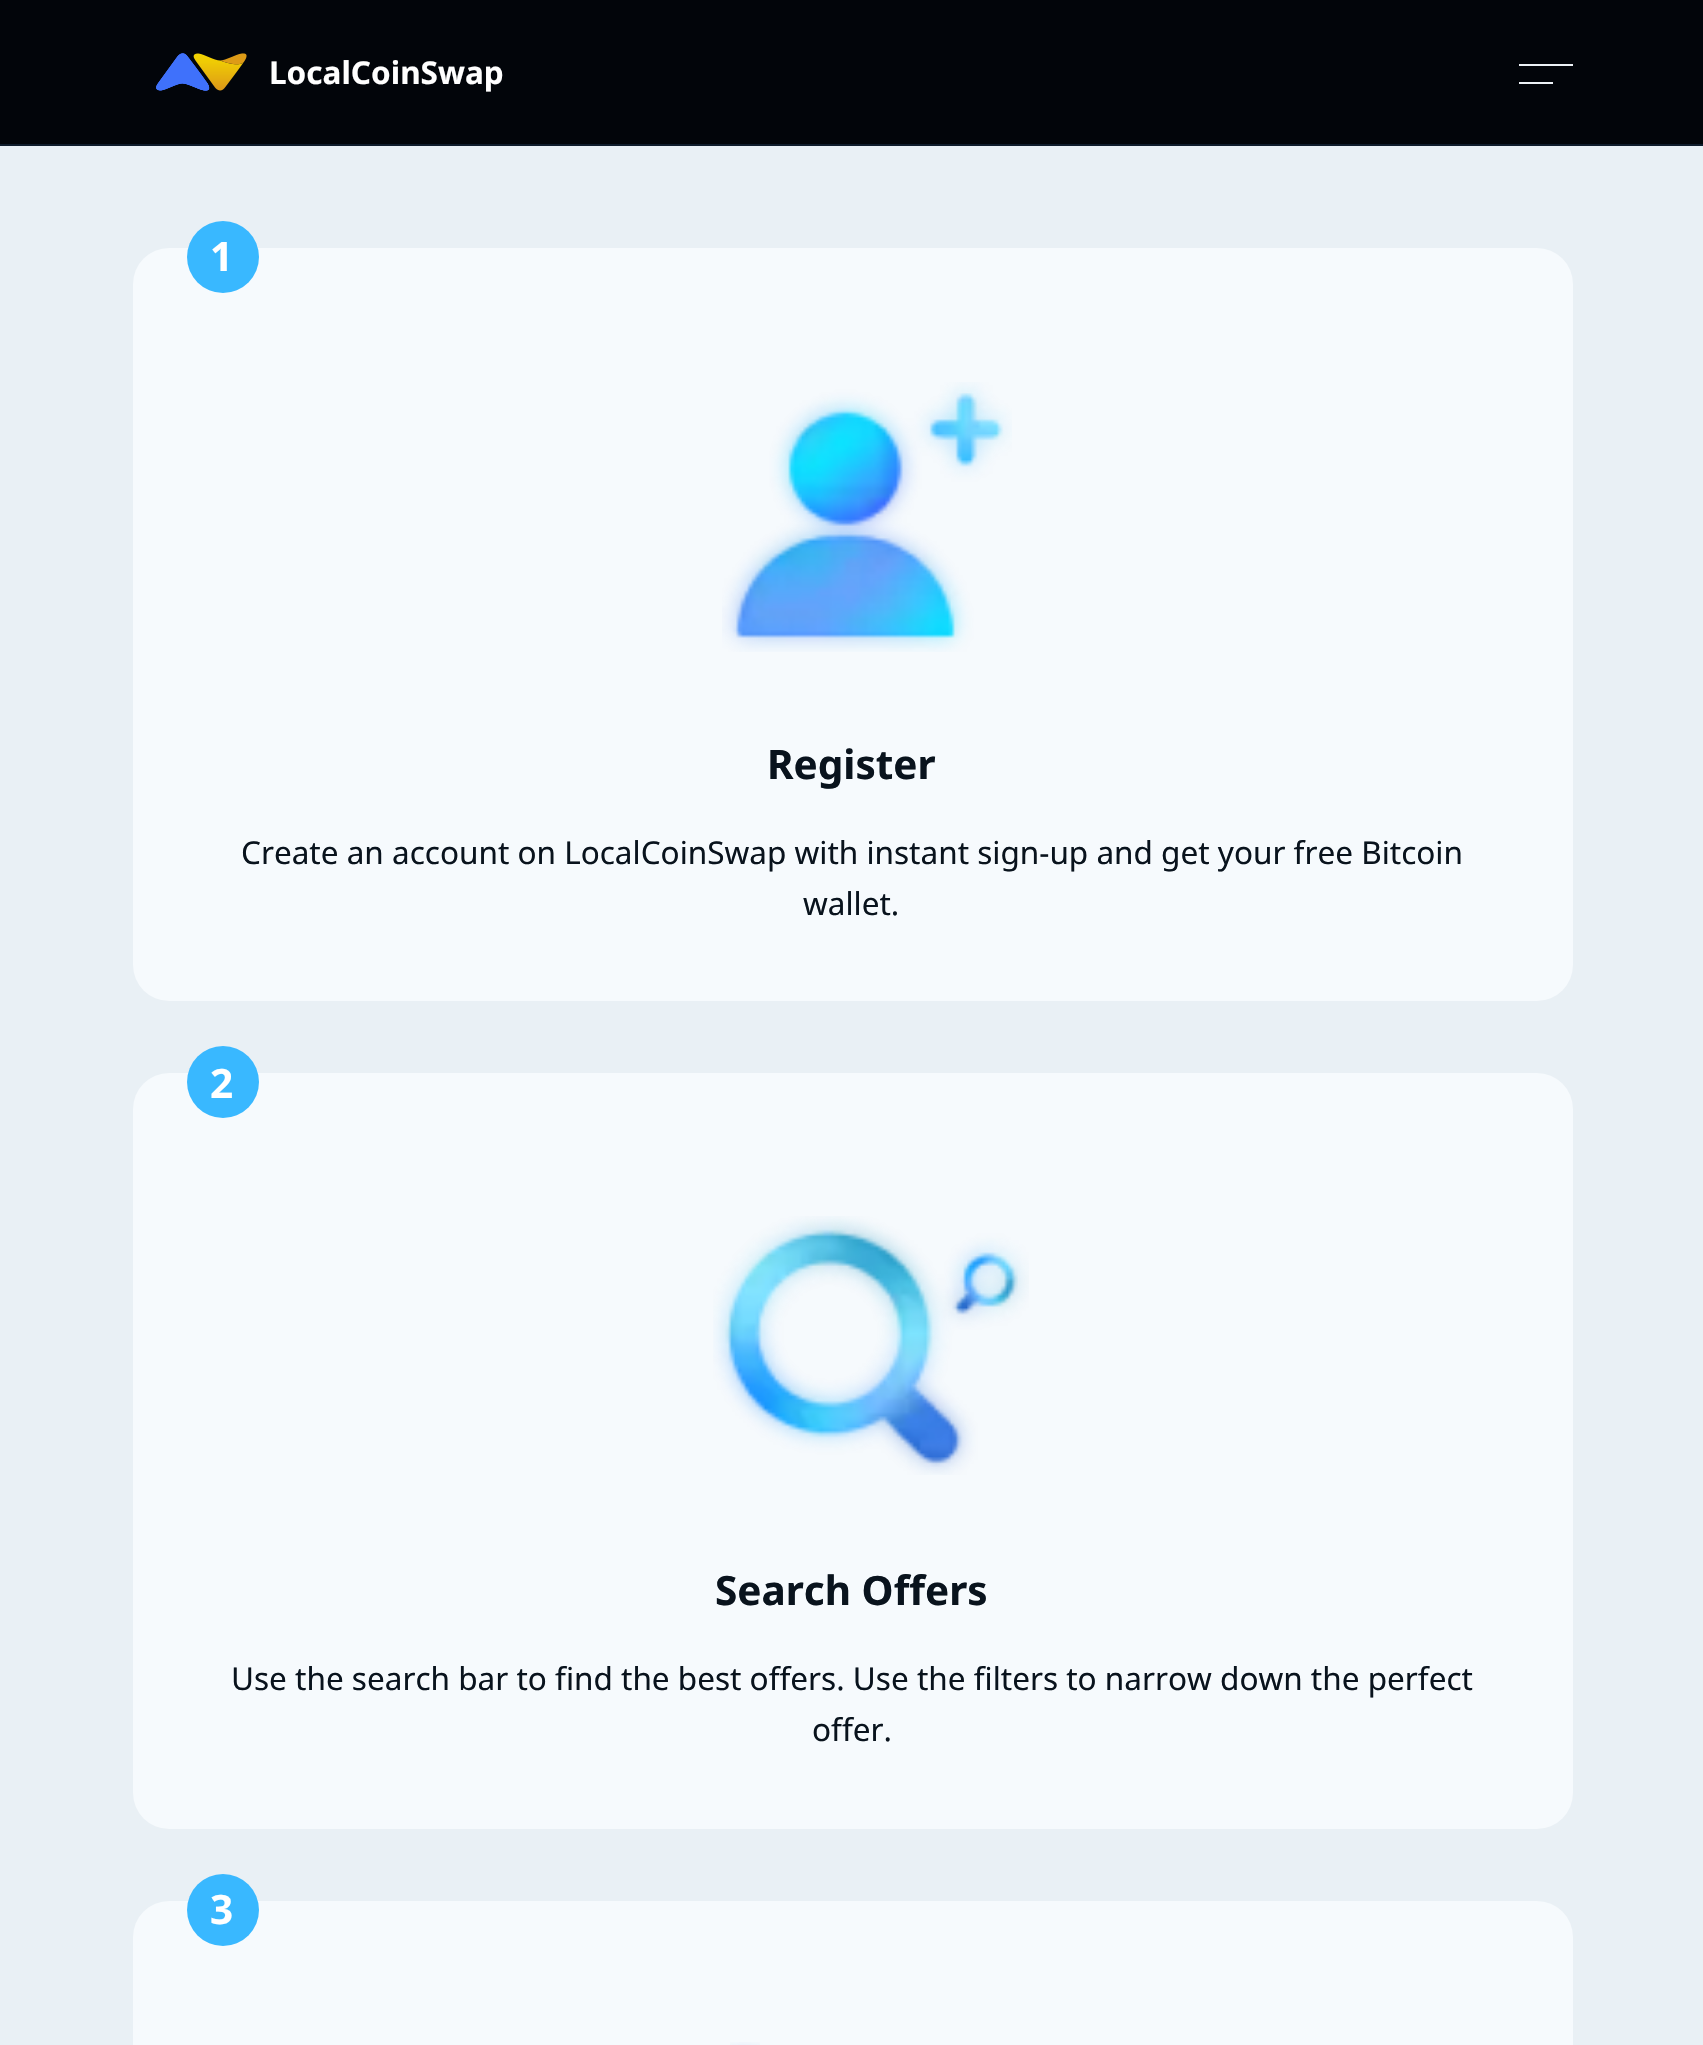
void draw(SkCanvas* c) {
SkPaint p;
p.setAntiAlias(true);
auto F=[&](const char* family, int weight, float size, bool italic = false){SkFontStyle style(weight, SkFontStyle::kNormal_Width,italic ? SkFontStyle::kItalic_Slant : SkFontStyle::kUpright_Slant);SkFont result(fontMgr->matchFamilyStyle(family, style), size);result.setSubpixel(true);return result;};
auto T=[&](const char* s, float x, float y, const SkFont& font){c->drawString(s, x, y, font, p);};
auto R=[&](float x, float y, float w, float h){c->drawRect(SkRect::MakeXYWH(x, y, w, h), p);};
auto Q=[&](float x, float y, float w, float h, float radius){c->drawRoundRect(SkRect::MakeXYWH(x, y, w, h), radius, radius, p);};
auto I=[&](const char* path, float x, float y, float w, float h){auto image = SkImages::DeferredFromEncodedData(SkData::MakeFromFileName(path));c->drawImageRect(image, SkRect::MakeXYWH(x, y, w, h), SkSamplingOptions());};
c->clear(0xffe9f0f5);
p.setColor(0xff02050a);
R(0,0,1703,144);
p.setColor(0xff0f1c2c);
R(0,144,1703,2);
I("1.png",156,53,91,38);
auto f1 = F("Noto Sans",700,31.5);
p.setColor(0xffffffff);
T("LocalCoinSwap",269,84,f1);
p.setColor(0xffedf2f7);
R(1519,64,54,2);
R(1519,82,34,2);
p.setColor(0xfff6fafd);
Q(133,248,1440,753,36);
p.setColor(0xff39b8ff);
c->drawCircle(223,257,36,p);
auto f2 = F("Noto Sans",700,40.5);
p.setColor(0xffffffff);
T("1",210,271,f2);
I("2.png",722,382,290,270);
p.setColor(0xff09131d);
T("Register",767,779,f2);
auto f3 = F("Noto Sans",400,31.5);
T("Create an account on LocalCoinSwap with instant sign-up and get your free Bitcoin",241,864,f3);
T("wallet.",803,915,f3);
p.setColor(0xfff6fafd);
Q(133,1073,1440,756,36);
p.setColor(0xff39b8ff);
c->drawCircle(223,1082,36,p);
p.setColor(0xffffffff);
T("2",210,1098,f2);
I("3.png",713,1216,316,259);
p.setColor(0xff09131d);
T("Search Offers",715,1605,f2);
T("Use the search bar to find the best offers. Use the filters to narrow down the perfect",231,1690,f3);
T("offer.",812,1741,f3);
p.setColor(0xfff6fafd);
Q(133,1901,1440,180,36);
p.setColor(0xff39b8ff);
c->drawCircle(223,1910,36,p);
p.setColor(0xffffffff);
T("3",210,1924,f2);
I("4.png",730,2042,30,3);
}
